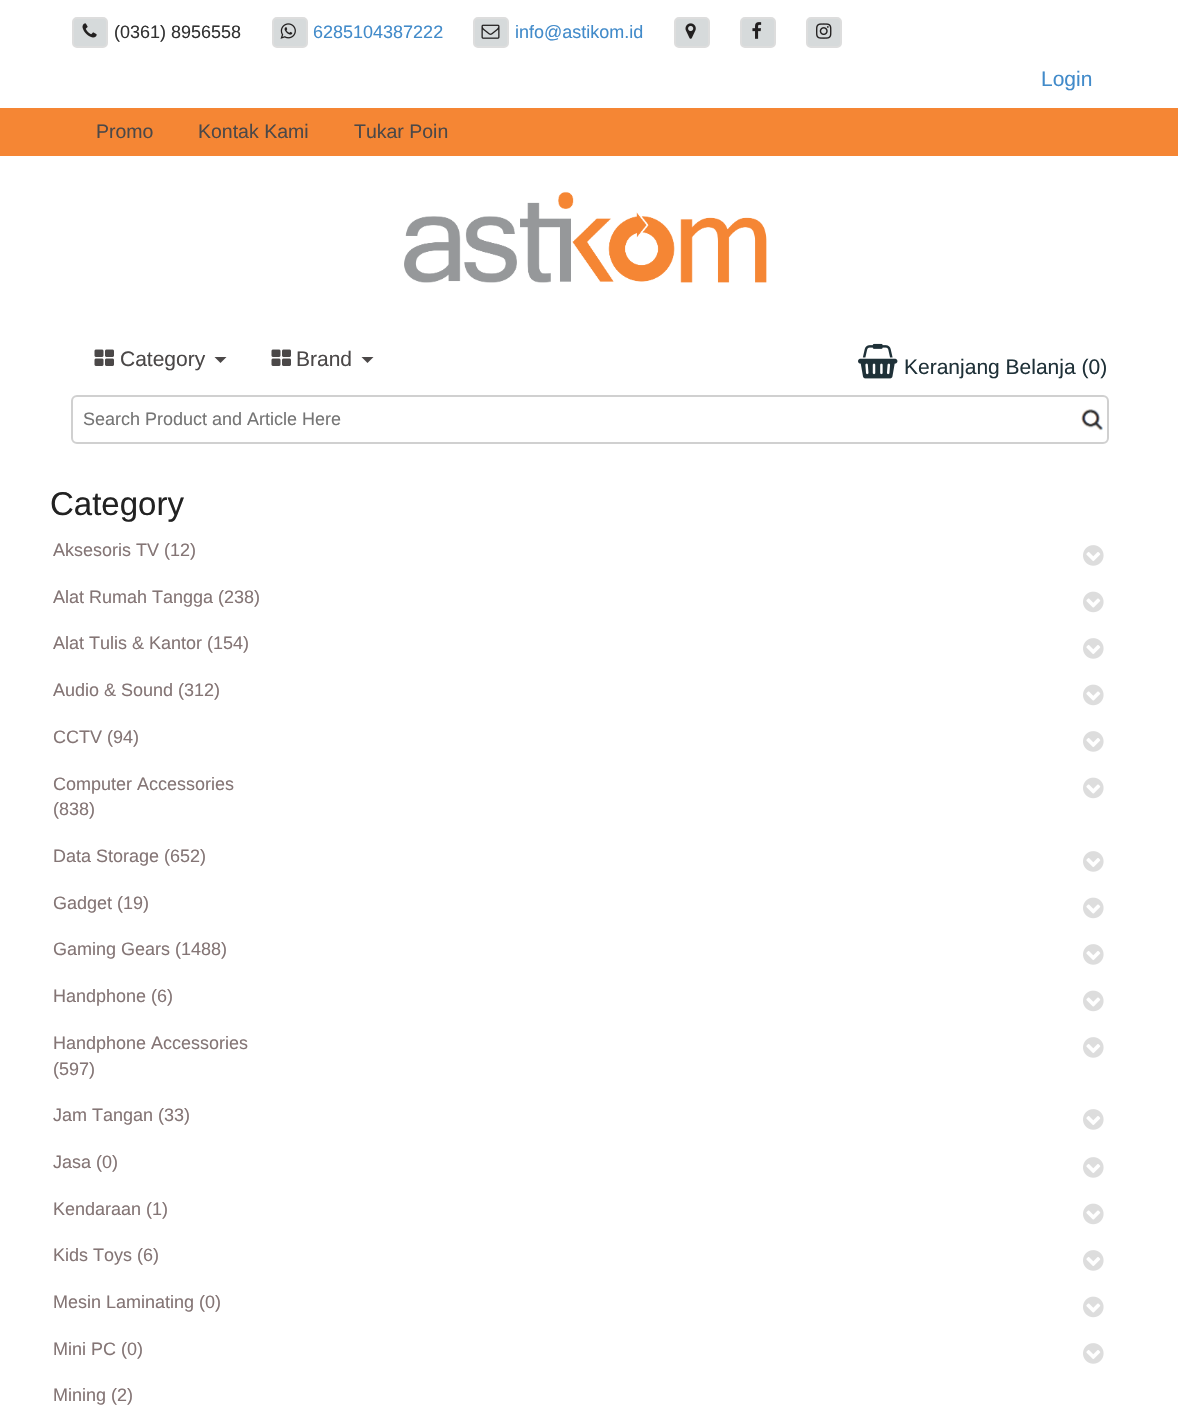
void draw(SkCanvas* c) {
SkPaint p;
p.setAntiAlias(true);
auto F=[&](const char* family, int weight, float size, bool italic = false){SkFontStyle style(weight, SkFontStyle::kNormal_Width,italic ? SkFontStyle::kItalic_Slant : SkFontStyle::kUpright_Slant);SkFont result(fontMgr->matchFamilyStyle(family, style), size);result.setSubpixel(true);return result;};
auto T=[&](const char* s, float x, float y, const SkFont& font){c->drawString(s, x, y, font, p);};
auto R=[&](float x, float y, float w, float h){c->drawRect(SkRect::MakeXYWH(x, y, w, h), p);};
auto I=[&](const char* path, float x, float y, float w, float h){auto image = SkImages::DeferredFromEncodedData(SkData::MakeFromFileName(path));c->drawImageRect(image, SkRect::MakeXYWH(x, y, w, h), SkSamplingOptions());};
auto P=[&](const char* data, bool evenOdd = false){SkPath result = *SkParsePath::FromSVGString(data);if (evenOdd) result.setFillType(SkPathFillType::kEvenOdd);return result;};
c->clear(0xffffffff);
p.setColor(0xffd6dadb);
c->drawRoundRect(SkRect::MakeXYWH(73,18,34,29),4,4,p);
p.setStroke(true);
p.setStrokeWidth(2);
p.setColor(0xffdddddd);
c->drawRoundRect(SkRect::MakeXYWH(73,18,34,29),4,4,p);
I("1.png",82,23,15,15);
auto f1 = F("Liberation Sans",400,18);
p.setStroke(false);
p.setColor(0xff323232);
T("(0361) 8956558",114,38,f1);
p.setColor(0xffd6dadb);
c->drawRoundRect(SkRect::MakeXYWH(273,18,34,29),4,4,p);
p.setStroke(true);
p.setColor(0xffdddddd);
c->drawRoundRect(SkRect::MakeXYWH(273,18,34,29),4,4,p);
I("2.png",280,23,16,16);
p.setStroke(false);
p.setColor(0xff428bca);
T("6285104387222",313,38,f1);
p.setColor(0xffd6dadb);
c->drawRoundRect(SkRect::MakeXYWH(474,18,34,29),4,4,p);
p.setStroke(true);
p.setColor(0xffdddddd);
c->drawRoundRect(SkRect::MakeXYWH(474,18,34,29),4,4,p);
I("3.png",481,24,19,15);
p.setStroke(false);
p.setColor(0xff428bca);
T("info@astikom.id",515,38,f1);
p.setColor(0xffd6dadb);
c->drawRoundRect(SkRect::MakeXYWH(675,18,34,29),4,4,p);
p.setStroke(true);
p.setColor(0xffdddddd);
c->drawRoundRect(SkRect::MakeXYWH(675,18,34,29),4,4,p);
I("4.png",685,23,11,16);
p.setStroke(false);
p.setColor(0xffd6dadb);
c->drawRoundRect(SkRect::MakeXYWH(741,18,34,29),4,4,p);
p.setStroke(true);
p.setColor(0xffdddddd);
c->drawRoundRect(SkRect::MakeXYWH(741,18,34,29),4,4,p);
I("5.png",752,22,10,17);
p.setStroke(false);
p.setColor(0xffd6dadb);
c->drawRoundRect(SkRect::MakeXYWH(807,18,34,29),4,4,p);
p.setStroke(true);
p.setColor(0xffdddddd);
c->drawRoundRect(SkRect::MakeXYWH(807,18,34,29),4,4,p);
I("6.png",816,23,16,16);
auto f2 = F("Liberation Sans",400,21);
p.setStroke(false);
p.setColor(0xff428bca);
T("Login",1041,86,f2);
p.setColor(0xfff58634);
R(0,108,1178,48);
auto f3 = F("Liberation Sans",400,19.5);
p.setColor(0xff4b4848);
T("Promo",96,138,f3);
T("Kontak Kami",198,138,f3);
T("Tukar Poin",354,138,f3);
I("7.png",404,191,363,92);
I("8.png",94,349,20,17);
T("Category",120,366,f2);
c->drawPath(P("M214.5 357h12l-6 6z"),p);
I("8.png",271,349,20,17);
T("Brand",296,366,f2);
c->drawPath(P("M361.5 357h12l-6 6z"),p);
I("9.png",858,343,40,36);
p.setColor(0xff1f3138);
T("Keranjang Belanja (0)",904,374,f2);
I("10.png",1081,409,22,22);
p.setStroke(true);
p.setColor(0xffd0d0d0);
c->drawRoundRect(SkRect::MakeXYWH(72,396,1036,47),5,5,p);
p.setStroke(false);
p.setColor(0xff757575);
T("Search Product and Article Here",83,425,f1);
auto f4 = F("Liberation Sans",400,33);
p.setColor(0xff222222);
T("Category",50,515,f4);
p.setColor(0xff847575);
T("Aksesoris TV (12)",53,556,f1);
I("11.png",1083,545,21,21);
T("Alat Rumah Tangga (238)",53,603,f1);
I("12.png",1083,591,21,22);
T("Alat Tulis & Kantor (154)",53,649,f1);
I("11.png",1083,638,21,21);
T("Audio & Sound (312)",53,696,f1);
I("12.png",1083,684,21,22);
T("CCTV (94)",53,743,f1);
I("11.png",1083,731,21,21);
T("Computer Accessories",53,790,f1);
T("(838)",53,815,f1);
I("12.png",1083,777,21,22);
T("Data Storage (652)",53,862,f1);
I("11.png",1083,851,21,21);
T("Gadget (19)",53,909,f1);
I("12.png",1083,897,21,22);
T("Gaming Gears (1488)",53,955,f1);
I("11.png",1083,944,21,21);
T("Handphone (6)",53,1002,f1);
I("12.png",1083,990,21,22);
T("Handphone Accessories",53,1049,f1);
T("(597)",53,1075,f1);
I("11.png",1083,1037,21,21);
T("Jam Tangan (33)",53,1121,f1);
I("11.png",1083,1109,21,21);
T("Jasa (0)",53,1168,f1);
I("11.png",1083,1157,21,21);
T("Kendaraan (1)",53,1215,f1);
I("12.png",1083,1203,21,22);
T("Kids Toys (6)",53,1261,f1);
I("11.png",1083,1250,21,21);
T("Mesin Laminating (0)",53,1308,f1);
I("12.png",1083,1296,21,22);
T("Mini PC (0)",53,1355,f1);
I("11.png",1083,1343,21,21);
T("Mining (2)",53,1401,f1);
}
